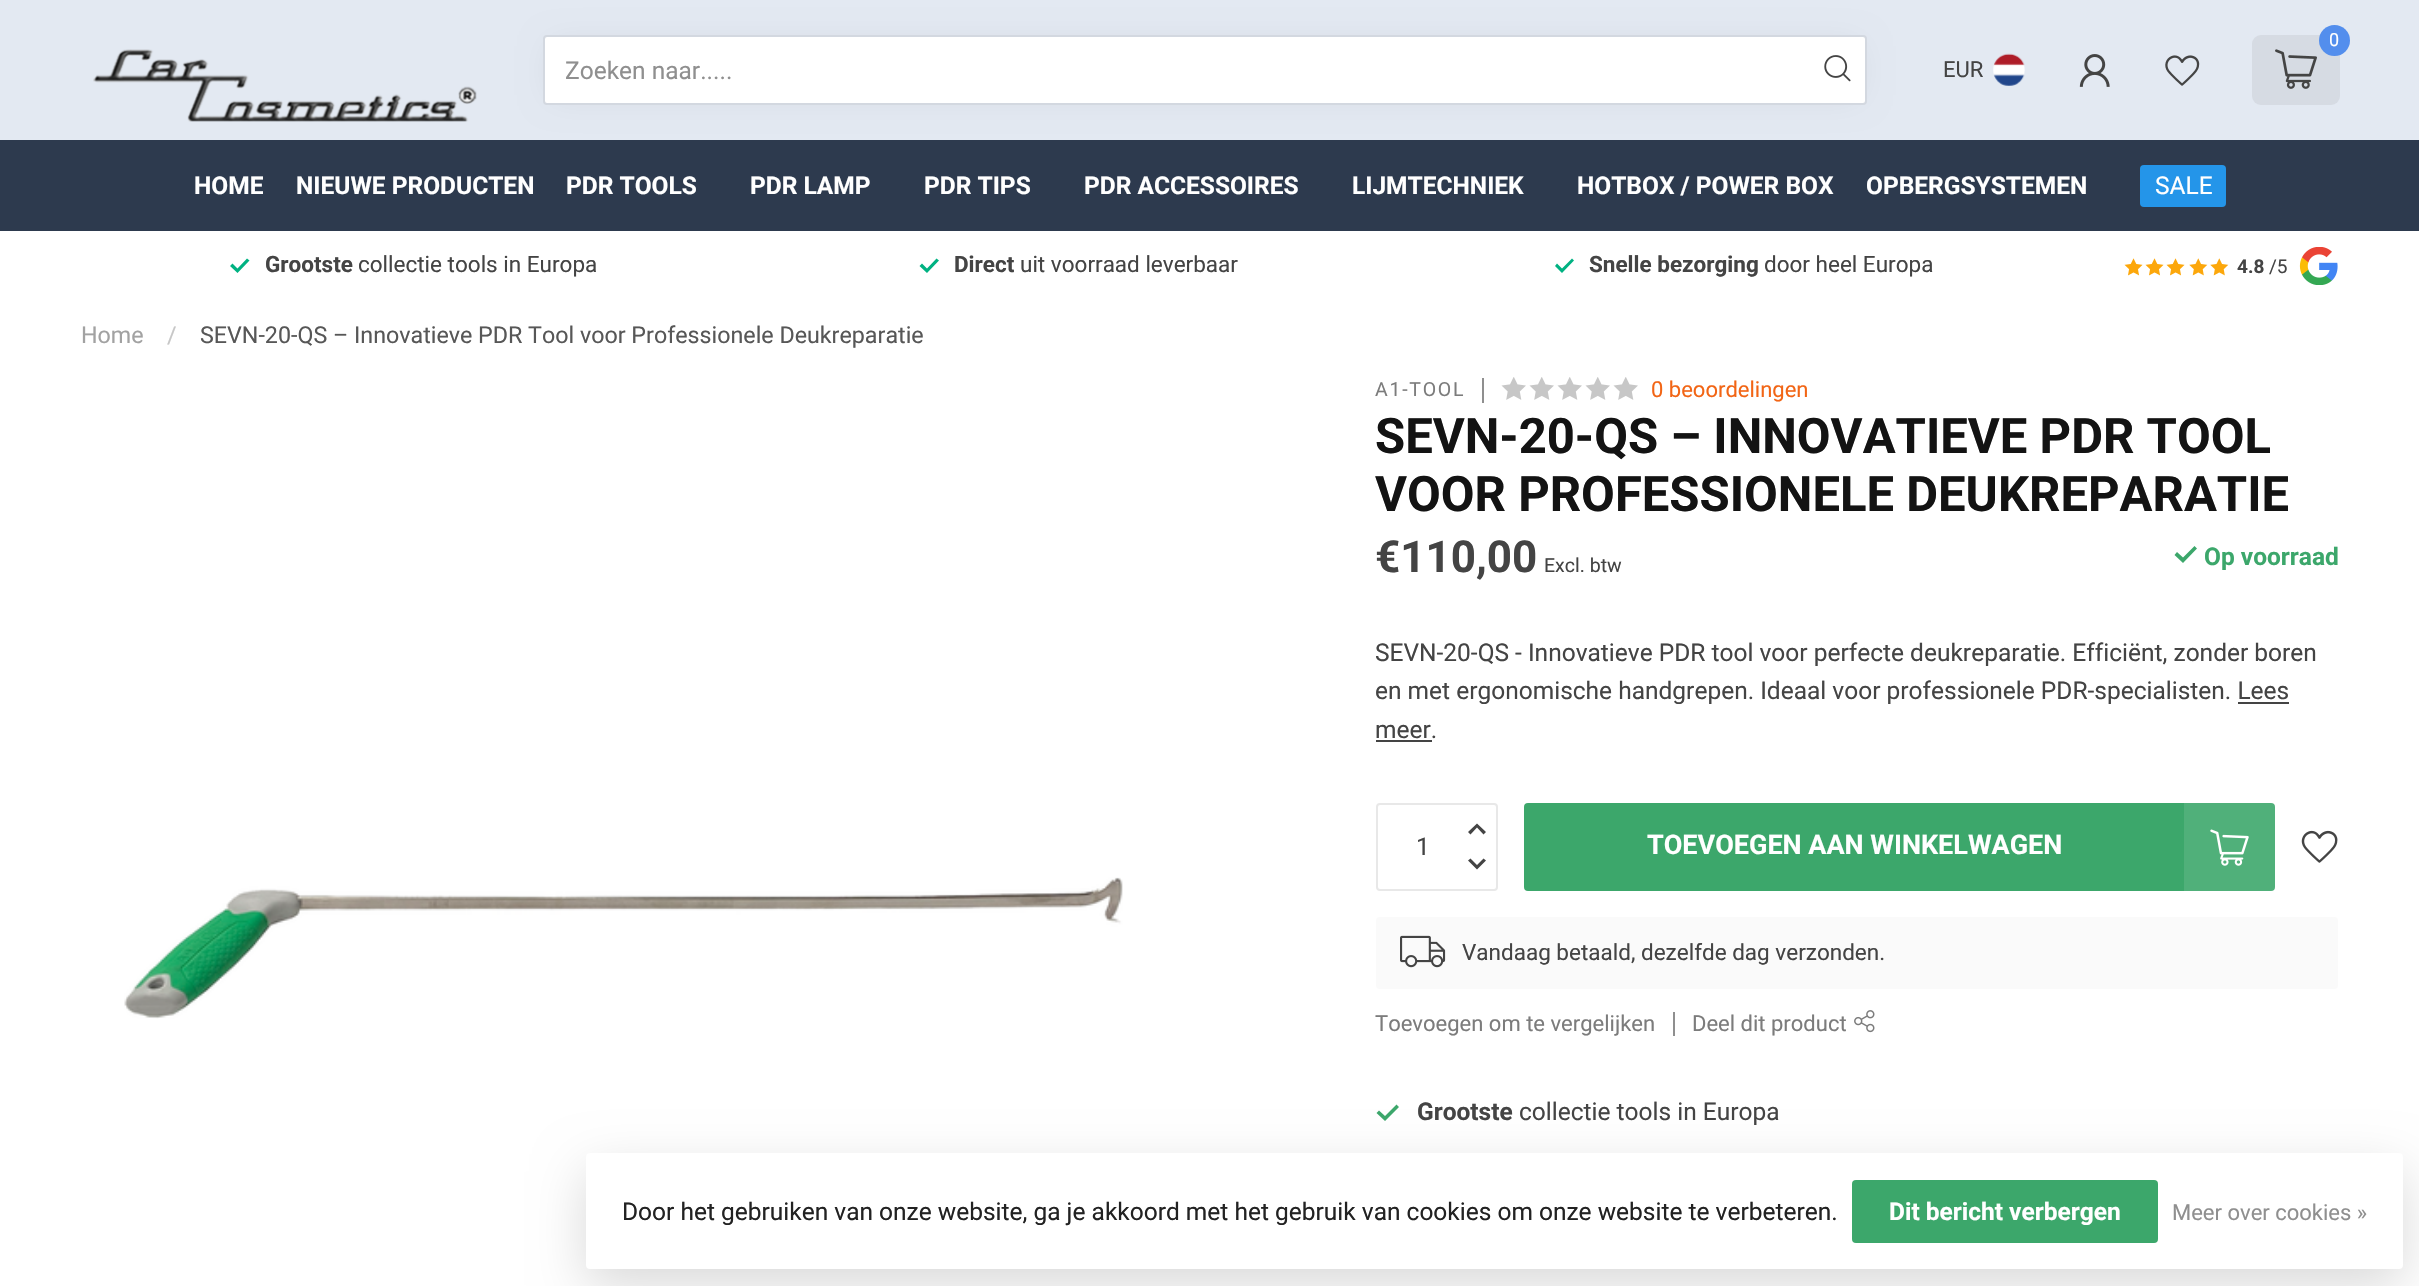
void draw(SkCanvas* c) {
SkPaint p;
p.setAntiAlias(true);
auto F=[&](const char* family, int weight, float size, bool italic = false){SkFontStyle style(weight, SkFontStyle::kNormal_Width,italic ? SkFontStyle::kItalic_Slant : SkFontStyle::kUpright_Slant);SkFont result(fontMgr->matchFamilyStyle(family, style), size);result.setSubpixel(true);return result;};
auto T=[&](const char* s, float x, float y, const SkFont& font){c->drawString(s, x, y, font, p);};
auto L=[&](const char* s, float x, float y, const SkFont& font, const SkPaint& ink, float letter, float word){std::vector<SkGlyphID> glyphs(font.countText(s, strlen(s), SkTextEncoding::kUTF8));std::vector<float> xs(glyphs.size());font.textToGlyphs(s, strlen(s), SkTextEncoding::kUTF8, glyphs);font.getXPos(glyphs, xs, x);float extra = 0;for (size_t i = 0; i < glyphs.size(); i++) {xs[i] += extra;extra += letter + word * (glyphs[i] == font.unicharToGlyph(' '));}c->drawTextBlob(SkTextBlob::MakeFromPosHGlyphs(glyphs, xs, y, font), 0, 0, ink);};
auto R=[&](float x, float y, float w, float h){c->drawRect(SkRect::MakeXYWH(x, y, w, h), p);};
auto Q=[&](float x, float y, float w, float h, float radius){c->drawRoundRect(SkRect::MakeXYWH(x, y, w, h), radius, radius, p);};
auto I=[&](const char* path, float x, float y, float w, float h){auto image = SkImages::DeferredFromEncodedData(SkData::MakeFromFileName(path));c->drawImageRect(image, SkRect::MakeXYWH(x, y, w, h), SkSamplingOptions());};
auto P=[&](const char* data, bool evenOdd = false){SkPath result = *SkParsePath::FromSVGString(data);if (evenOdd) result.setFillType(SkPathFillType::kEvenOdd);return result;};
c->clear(0xffffffff);
p.setColor(0xffe3e9f2);
R(0,0,2419,140);
I("1.png",93,49,384,73);
p.setColor(0xff2d3a4e);
R(0,140,2419,91);
p.setColor(0x14000000);
p.setMaskFilter(SkMaskFilter::MakeBlur(kNormal_SkBlurStyle, 16));
c->drawRect(SkRect::MakeXYWH(553,46,1304,49),p);
p.setMaskFilter(nullptr);
p.setColor(0xffffffff);
c->drawRoundRect(SkRect::MakeXYWH(544,36,1322,68),3,3,p);
p.setStroke(true);
p.setStrokeWidth(2);
p.setColor(0xffd3d8e0);
c->drawRoundRect(SkRect::MakeXYWH(544,36,1322,68),3,3,p);
auto f1 = F("Roboto",400,24.5);
p.setStroke(false);
p.setColor(0xff8f8f8f);
T("Zoeken naar.....",565,79,f1);
I("2.png",1824,55,27,27);
p.setColor(0xffd6dbe3);
Q(2252,35,88,70,9);
p.setColor(0xff538eed);
c->drawCircle(2334.5,40.5,15.5,p);
auto f2 = F("Roboto",400,18);
p.setColor(0xffffffff);
T("0",2329,46,f2);
I("3.png",2275,49,42,40);
auto f3 = F("Roboto",400,22);
p.setColor(0xff444444);
T("EUR",1943,77,f3);
I("4.png",1993,53,32,33);
I("5.png",2079,54,31,33);
I("6.png",2165,55,35,31);
auto f4 = F("Roboto",700,24.5);
p.setColor(0xffffffff);
T("HOME",194,194,f4);
T("NIEUWE PRODUCTEN",296,194,f4);
T("PDR TOOLS",566,194,f4);
T("PDR LAMP",750,194,f4);
T("PDR TIPS",924,194,f4);
T("PDR ACCESSOIRES",1084,194,f4);
T("LIJMTECHNIEK",1352,194,f4);
T("HOTBOX / POWER BOX",1577,194,f4);
T("OPBERGSYSTEMEN",1866,194,f4);
p.setColor(0xff2495e9);
Q(2140,165,86,42,4);
p.setColor(0xffffffff);
T("SALE",2155,194,f1);
p.setColor(0xff00b282);
c->drawPath(P("M237.5 273l-7.5-7l2.5-2.5l5 5l9.5-10l2.5 2z"),p);
auto f5 = F("Roboto",700,22.5);
p.setColor(0xff444444);
T("Grootste",265,272,f5);
auto f6 = F("Roboto",400,22.5);
T("collectie tools in Europa",358,272,f6);
p.setColor(0xff00b282);
c->drawPath(P("M927 273l-7.5-7l2.5-2.5l5 5l9.5-10l2.5 2z"),p);
p.setColor(0xff444444);
T("Direct",954,272,f5);
T("uit voorraad leverbaar",1020,272,f6);
p.setColor(0xff00b282);
c->drawPath(P("M1562 273l-7-7l2-2.5l5 5l10-10l2 2z"),p);
p.setColor(0xff444444);
T("Snelle bezorging",1589,272,f5);
T("door heel Europa",1764,272,f6);
I("7.png",2124,258,19,18);
I("7.png",2145,258,19,18);
I("7.png",2166,258,19,18);
I("8.png",2189,258,19,18);
I("8.png",2210,258,19,18);
auto f7 = F("Roboto",700,19);
T("4.8",2237,273,f7);
auto f8 = F("Roboto",400,19);
T("/5",2269,273,f8);
I("9.png",2299,247,39,38);
auto f9 = F("Roboto",400,23.25);
p.setColor(0xffa2a2a2);
T("Home",81,343,f9);
p.setColor(0xffc7c7c7);
T("/",167,343,f9);
p.setColor(0xff575757);
T("SEVN-20-QS – Innovatieve PDR Tool voor Professionele Deukreparatie",200,343,f9);
I("10.png",124,877,999,142);
auto f10 = F("Roboto",400,19.5);
p.setColor(0xff7c7c7c);
L("A1-TOOL",1375,396,f10,p,1.75,0);
p.setColor(0xff8f8f8f);
R(1482,378,2,25);
I("11.png",1501,377,25,23);
I("11.png",1529,377,25,23);
I("11.png",1557,377,25,23);
I("11.png",1585,377,25,23);
I("11.png",1613,377,25,23);
p.setColor(0xfff26515);
T("0 beoordelingen",1651,397,f3);
auto f11 = F("Roboto",700,49);
p.setColor(0xff131313);
T("SEVN-20-QS – INNOVATIEVE PDR TOOL",1375,453,f11);
T("VOOR PROFESSIONELE DEUKREPARATIE",1375,511,f11);
auto f12 = F("Roboto",700,44);
p.setColor(0xff444444);
T("€110,00",1375,572,f12);
T("Excl. btw",1544,572,f10);
p.setColor(0xff3ca76b);
c->drawPath(P("M2183 563l-8.5-8l2.5-3l6 5.5l11.5-11.5l2.5 2.5z"),p);
T("Op voorraad",2204,565,f4);
p.setColor(0xff444444);
T("SEVN-20-QS - Innovatieve PDR tool voor perfecte deukreparatie. Efficiënt, zonder boren",1375,661,f1);
T("en met ergonomische handgrepen. Ideaal voor professionele PDR-specialisten. Lees",1375,699,f1);
T("meer.",1375,738,f1);
R(2238,702,51,2);
R(1376,740,56,2);
p.setStroke(true);
p.setColor(0xffe8e8e8);
c->drawRoundRect(SkRect::MakeXYWH(1377,804,120,86),3,3,p);
p.setStroke(false);
p.setColor(0xff444444);
T("1",1416,855,f1);
c->drawPath(P("M1468 832l2.5 2.5l6.5-7l6.5 7l2.5-2.5l-9-8.5zm0 28.5l2.5-2l6.5 6.5l6.5-6.5l2.5 2l-9 9z"),p);
p.setColor(0xff3ca76b);
Q(1524,803,751,88,4);
auto f13 = F("Roboto",700,27);
p.setColor(0xffffffff);
T("TOEVOEGEN AAN WINKELWAGEN",1647,854,f13);
I("12.png",2210,829,39,37);
p.setColor(0x1affffff);
R(2184,803,91,88);
I("13.png",2301,830,37,33);
p.setColor(0xfffafafa);
Q(1376,917,962,72,4);
I("14.png",1400,935,46,33);
p.setColor(0xff444444);
T("Vandaag betaald, dezelfde dag verzonden.",1462,960,f6);
p.setColor(0xff7c7c7c);
T("Toevoegen om te vergelijken",1375,1031,f3);
p.setColor(0xff8f8f8f);
R(1673,1012,2,24);
p.setColor(0xff7c7c7c);
T("Deel dit product",1692,1031,f3);
I("15.png",1854,1010,21,23);
p.setColor(0xff3ca76b);
c->drawPath(P("M1385 1121l-8.5-8l2.5-2.5l6 5.5l11.5-11.5l2.5 2.5z"),p);
p.setColor(0xff444444);
T("Grootste",1417,1120,f4);
T("collectie tools in Europa",1519,1120,f1);
p.setColor(0x26000000);
p.setMaskFilter(SkMaskFilter::MakeBlur(kNormal_SkBlurStyle, 26));
c->drawRoundRect(SkRect::MakeXYWH(586,1171,1817,115),4,4,p);
p.setMaskFilter(nullptr);
p.setColor(0xffffffff);
Q(586,1153,1817,116,4);
p.setColor(0xff222222);
T("Door het gebruiken van onze website, ga je akkoord met het gebruik van cookies om onze website te verbeteren.",622,1220,f1);
p.setColor(0xff3ca76b);
Q(1852,1180,306,63,4);
p.setColor(0xffffffff);
T("Dit bericht verbergen",1889,1220,f4);
p.setColor(0xff8f8f8f);
T("Meer over cookies »",2172,1220,f3);
}
